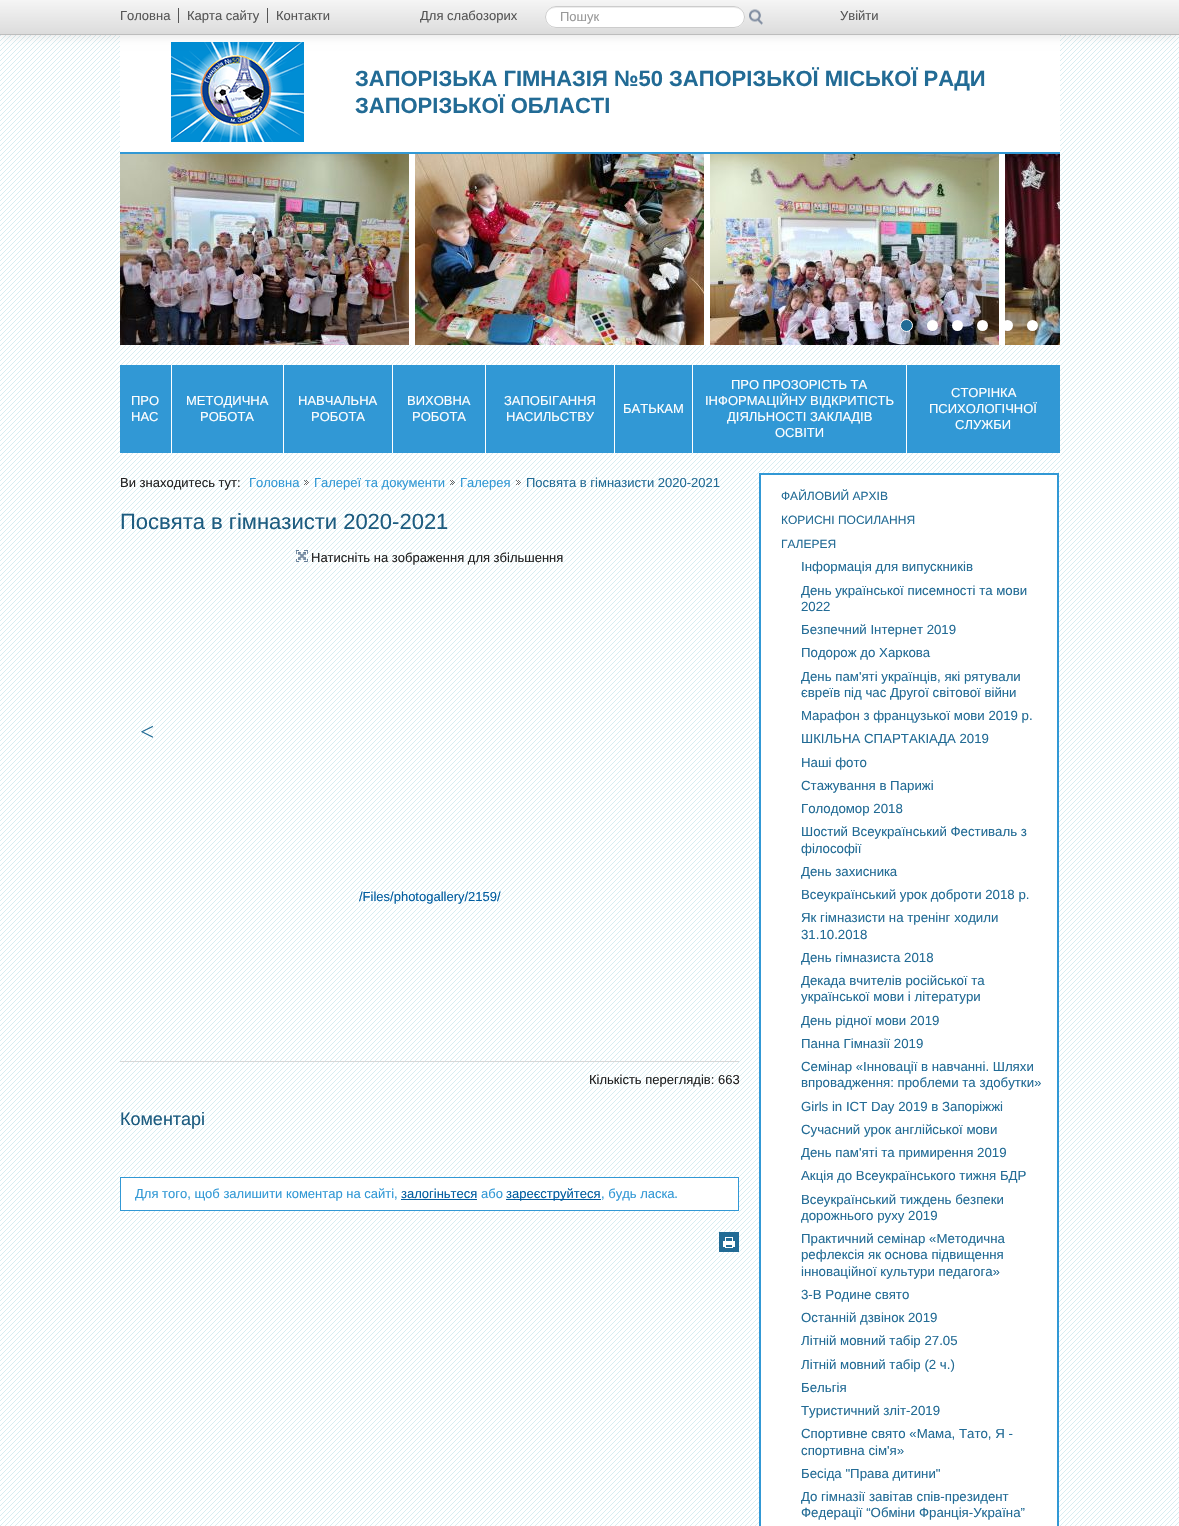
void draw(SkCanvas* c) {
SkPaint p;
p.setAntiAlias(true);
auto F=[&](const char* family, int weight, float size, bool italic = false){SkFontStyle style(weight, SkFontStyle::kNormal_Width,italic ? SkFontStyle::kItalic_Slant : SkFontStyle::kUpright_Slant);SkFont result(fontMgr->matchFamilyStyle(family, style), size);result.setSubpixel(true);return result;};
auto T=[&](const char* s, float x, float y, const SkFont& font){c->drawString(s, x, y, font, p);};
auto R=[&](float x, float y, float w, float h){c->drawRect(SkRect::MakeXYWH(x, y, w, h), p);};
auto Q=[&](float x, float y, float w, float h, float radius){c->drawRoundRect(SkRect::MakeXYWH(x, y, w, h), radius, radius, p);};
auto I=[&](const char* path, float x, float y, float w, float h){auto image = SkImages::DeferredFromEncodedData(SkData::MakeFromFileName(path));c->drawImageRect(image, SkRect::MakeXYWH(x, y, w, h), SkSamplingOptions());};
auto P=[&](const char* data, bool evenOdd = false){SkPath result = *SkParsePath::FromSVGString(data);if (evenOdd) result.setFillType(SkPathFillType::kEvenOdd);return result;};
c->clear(0xffffffff);
I("1.png",0,35,1179,1491);
p.setColor(0xffffffff);
R(120,35,940,117);
I("3.png",171,42,133,100);
p.setColor(0x1a000000);
p.setMaskFilter(SkMaskFilter::MakeBlur(kNormal_SkBlurStyle, 5));
c->drawRect(SkRect::MakeXYWH(0,1,1179,35),p);
p.setMaskFilter(nullptr);
{
const SkColor colors[] = {0xfff5f5f5,0xffdcdcdc};
const float stops[] = {0,1};
const SkPoint ends[] = {{590,0}, {590,34}};
p.setShader(SkGradientShader::MakeLinear(ends, colors, stops, 2, SkTileMode::kClamp));
p.setAlpha(255);
}
R(0,0,1179,34);
p.setShader(nullptr);
p.setColor(0xffbdbdbd);
R(0,34,1179,1);
auto f1 = F("Liberation Sans",400,13);
p.setColor(0xff555555);
T("Головна",120,20,f1);
R(178,8,1,15);
T("Карта сайту",187,20,f1);
R(267,8,1,15);
T("Контакти",276,20,f1);
T("Для слабозорих",420,20,f1);
p.setColor(0xffffffff);
Q(545,6,200,22,11);
p.setColor(0xffececec);
c->drawPath(P("M556 8h178c6 0 10 4 10 9c0-5-4-10-10-10h-178c-6 0-10 5-10 10c0-5 4-9 10-9z"),p);
p.setStroke(true);
p.setStrokeWidth(1);
p.setColor(0xffcccccc);
c->drawRoundRect(SkRect::MakeXYWH(545.5,6.5,199,21),10.5,10.5,p);
p.setStroke(false);
p.setColor(0xff999999);
T("Пошук",560,21,f1);
I("2.png",749,9,14,16);
p.setColor(0xff555555);
T("Увійти",840,20,f1);
auto f2 = F("Liberation Sans",700,22);
p.setColor(0xff226b95);
T("ЗАПОРІЗЬКА ГІМНАЗІЯ №50 ЗАПОРІЗЬКОЇ МІСЬКОЇ РАДИ",355,86,f2);
T("ЗАПОРІЗЬКОЇ ОБЛАСТІ",355,113,f2);
p.setColor(0xffffffff);
R(409,154,596,191);
p.setColor(0xff3198d5);
R(120,152,940,2);
I("4.png",120,154,289,191);
I("5.png",415,154,289,191);
I("6.png",710,154,289,191);
I("7.png",1005,154,55,191);
p.setColor(0xff226b95);
c->drawCircle(906.5,325.5,6,p);
p.setStroke(true);
p.setColor(0xffffffff);
c->drawCircle(906.5,325.5,6,p);
p.setStroke(false);
c->drawCircle(932.5,325.5,5.5,p);
c->drawCircle(957.5,325.5,5.5,p);
c->drawCircle(982.5,325.5,5.5,p);
c->drawCircle(1007.5,325.5,5.5,p);
c->drawCircle(1032.5,325.5,5.5,p);
p.setColor(0xff3198d5);
R(120,365,940,88);
p.setColor(0xffffffff);
R(171,365,1,88);
T("ПРО",131,405,f1);
T("НАС",131,421,f1);
R(283,365,1,88);
T("МЕТОДИЧНА",186,405,f1);
T("РОБОТА",200,421,f1);
R(392,365,1,88);
T("НАВЧАЛЬНА",298,405,f1);
T("РОБОТА",311,421,f1);
R(485,365,1,88);
T("ВИХОВНА",407,405,f1);
T("РОБОТА",412,421,f1);
R(614,365,1,88);
T("ЗАПОБІГАННЯ",504,405,f1);
T("НАСИЛЬСТВУ",506,421,f1);
R(692,365,1,88);
T("БАТЬКАМ",623,413,f1);
R(906,365,1,88);
T("ПРО ПРОЗОРІСТЬ ТА",731,389,f1);
T("ІНФОРМАЦІЙНУ ВІДКРИТІСТЬ",705,405,f1);
T("ДІЯЛЬНОСТІ ЗАКЛАДІВ",727,421,f1);
T("ОСВІТИ",775,437,f1);
T("СТОРІНКА",951,397,f1);
T("ПСИХОЛОГІЧНОЇ",929,413,f1);
T("СЛУЖБИ",955,429,f1);
p.setColor(0xff212121);
T("Ви знаходитесь тут:",120,487,f1);
p.setColor(0xff3198d5);
T("Головна",249,487,f1);
I("8.png",304,480,5,5);
T("Галереї та документи",314,487,f1);
I("9.png",450,480,5,5);
T("Галерея",460,487,f1);
I("10.png",516,480,5,5);
p.setColor(0xff226b95);
T("Посвята в гімназисти 2020-2021",526,487,f1);
auto f3 = F("Liberation Sans",400,22);
p.setColor(0xff1d5c80);
T("Посвята в гімназисти 2020-2021",120,529,f3);
I("11.png",296,550,12,13);
p.setColor(0xff212121);
T("Натиснiть на зображення для збiльшення",311,562,f1);
auto f4 = F("Liberation Serif",400,25);
p.setColor(0xff226b95);
T("<",140,740,f4);
p.setColor(0xff005c9f);
T("/Files/photogallery/2159/",359,901,f1);
p.setColor(0xffd7d7d7);
R(120,1061,619,1);
p.setColor(0xff212121);
T("Кiлькiсть переглядiв: 663",589,1084,f1);
auto f5 = F("Liberation Sans",400,18);
p.setColor(0xff1d5c80);
T("Коментарi",120,1125,f5);
p.setColor(0xffffffff);
c->drawRect(SkRect::MakeXYWH(120.5,1177.5,618,33),p);
p.setStroke(true);
p.setColor(0xff3198d5);
c->drawRect(SkRect::MakeXYWH(120.5,1177.5,618,33),p);
p.setStroke(false);
T("Для того, щоб залишити коментар на сайті,",135,1198,f1);
p.setColor(0xff005c9f);
T("залогіньтеся",401,1198,f1);
R(401,1199,76,1);
p.setColor(0xff3198d5);
T("або",481,1198,f1);
p.setColor(0xff005c9f);
R(506,1199,95,1);
T("зареєструйтеся",506,1198,f1);
p.setColor(0xff3198d5);
T(", будь ласка.",601,1198,f1);
p.setColor(0xff226b95);
R(719,1232,20,20);
I("12.png",723,1237,12,11);
p.setColor(0xffffffff);
c->drawRect(SkRect::MakeXYWH(760,474,298,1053),p);
p.setStroke(true);
p.setStrokeWidth(2);
p.setColor(0xff3198d5);
c->drawRect(SkRect::MakeXYWH(760,474,298,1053),p);
auto f6 = F("Liberation Sans",400,12);
p.setStroke(false);
p.setColor(0xff226b95);
T("ФАЙЛОВИЙ АРХІВ",781,500,f6);
T("КОРИСНІ ПОСИЛАННЯ",781,524,f6);
T("ГАЛЕРЕЯ",781,548,f6);
auto f7 = F("Liberation Sans",400,13.25);
T("Інформація для випускників",801,571,f7);
T("День української писемності та мови",801,595,f7);
T("2022",801,611,f7);
T("Безпечний Інтернет 2019",801,634,f7);
T("Подорож до Харкова",801,657,f7);
T("День пам'яті українців, які рятували",801,681,f7);
T("євреїв під час Другої світової війни",801,697,f7);
T("Марафон з французької мови 2019 р.",801,720,f7);
T("ШКІЛЬНА СПАРТАКІАДА 2019",801,743,f7);
T("Наші фото",801,767,f7);
T("Стажування в Парижі",801,790,f7);
T("Голодомор 2018",801,813,f7);
T("Шостий Всеукраїнський Фестиваль з",801,836,f7);
T("філософії",801,853,f7);
T("День захисника",801,876,f7);
T("Всеукраїнський урок доброти 2018 р.",801,899,f7);
T("Як гімназисти на тренінг ходили",801,922,f7);
T("31.10.2018",801,939,f7);
T("День гімназиста 2018",801,962,f7);
T("Декада вчителів російської та",801,985,f7);
T("української мови і літератури",801,1001,f7);
T("День рідної мови 2019",801,1025,f7);
T("Панна Гімназії 2019",801,1048,f7);
T("Семінар «Інновації в навчанні. Шляхи",801,1071,f7);
T("впровадження: проблеми та здобутки»",801,1087,f7);
T("Girls in ICT Day 2019 в Запоріжжі",801,1111,f7);
T("Сучасний урок англійської мови",801,1134,f7);
T("День пам'яті та примирення 2019",801,1157,f7);
T("Акція до Всеукраїнського тижня БДР",801,1180,f7);
T("Всеукраїнський тиждень безпеки",801,1204,f7);
T("дорожнього руху 2019",801,1220,f7);
T("Практичний семінар «Методична",801,1243,f7);
T("рефлексія як основа підвищення",801,1259,f7);
T("інноваційної культури педагога»",801,1276,f7);
T("3-В Родине свято",801,1299,f7);
T("Останній дзвінок 2019",801,1322,f7);
T("Літній мовний табір 27.05",801,1345,f7);
T("Літній мовний табір (2 ч.)",801,1369,f7);
T("Бельгія",801,1392,f7);
T("Туристичний зліт-2019",801,1415,f7);
T("Спортивне свято «Мама, Тато, Я -",801,1438,f7);
T("спортивна сім'я»",801,1455,f7);
T("Бесіда \"Права дитини\"",801,1478,f7);
T("До гімназії завітав спів-президент",801,1501,f7);
T("Федерації “Обміни Франція-Україна”",801,1517,f7);
}
